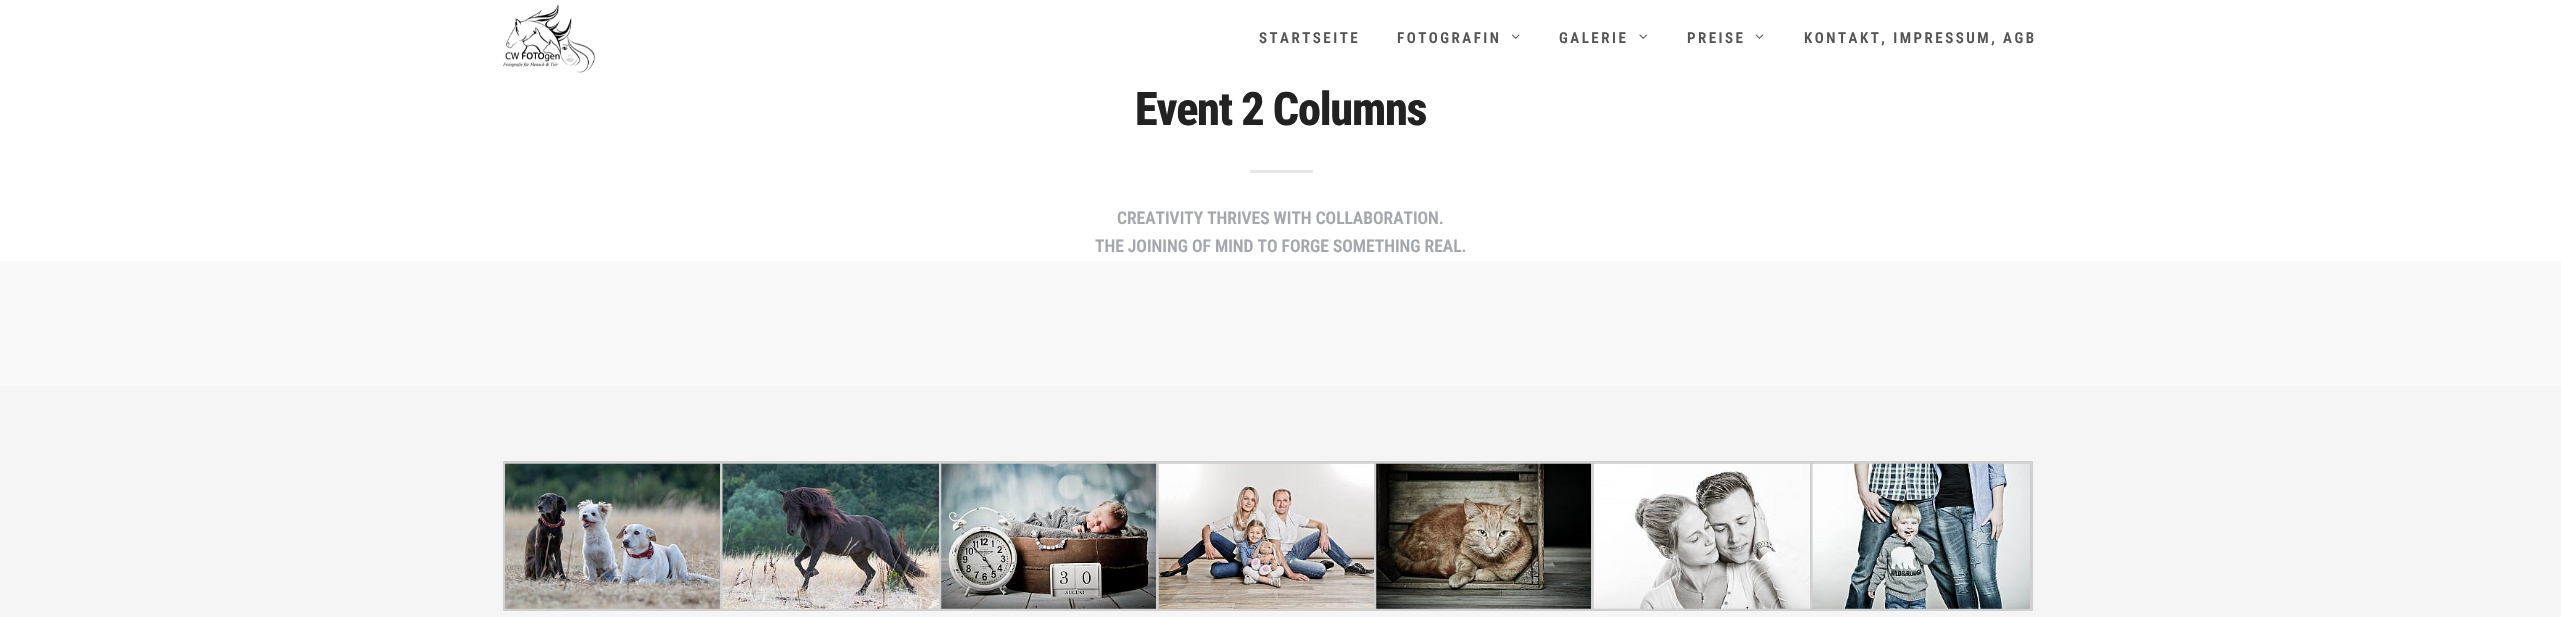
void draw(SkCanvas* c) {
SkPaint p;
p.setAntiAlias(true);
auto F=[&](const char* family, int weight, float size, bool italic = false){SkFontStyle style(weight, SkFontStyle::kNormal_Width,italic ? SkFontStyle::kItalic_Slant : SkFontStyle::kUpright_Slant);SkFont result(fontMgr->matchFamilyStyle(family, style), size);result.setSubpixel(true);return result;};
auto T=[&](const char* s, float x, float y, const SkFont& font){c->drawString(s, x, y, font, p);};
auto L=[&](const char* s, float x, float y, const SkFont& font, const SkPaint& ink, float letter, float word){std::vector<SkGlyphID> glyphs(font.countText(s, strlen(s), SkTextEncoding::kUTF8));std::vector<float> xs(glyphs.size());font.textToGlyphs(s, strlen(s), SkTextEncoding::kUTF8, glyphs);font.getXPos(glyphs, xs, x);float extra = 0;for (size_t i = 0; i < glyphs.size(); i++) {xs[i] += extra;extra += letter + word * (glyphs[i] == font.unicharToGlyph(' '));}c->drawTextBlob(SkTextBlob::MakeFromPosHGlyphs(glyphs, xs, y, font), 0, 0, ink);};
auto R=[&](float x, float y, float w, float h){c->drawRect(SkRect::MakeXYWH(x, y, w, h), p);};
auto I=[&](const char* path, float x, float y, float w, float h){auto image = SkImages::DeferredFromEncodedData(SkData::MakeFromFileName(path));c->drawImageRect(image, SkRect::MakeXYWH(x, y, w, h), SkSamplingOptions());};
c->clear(0xffffffff);
I("1.png",503,4,92,69);
auto f1 = F("Roboto Condensed",600,15);
p.setColor(0xff555555);
L("STARTSEITE",1259,43,f1,p,2.5,0);
L("FOTOGRAFIN",1397,43,f1,p,2.5,0);
I("2.png",1511,34,9,5);
L("GALERIE",1559,43,f1,p,2.5,0);
I("3.png",1639,34,8,5);
L("PREISE",1687,43,f1,p,2.5,0);
I("4.png",1755,34,9,5);
L("KONTAKT, IMPRESSUM, AGB",1804,43,f1,p,2.5,0);
auto f2 = F("Roboto Condensed",800,46.25);
p.setColor(0xff222222);
L("Event 2 Columns",1135,125,f2,p,-1.25,0);
p.setColor(0xffe7e7e7);
R(1250,170,63,3);
auto f3 = F("Roboto Condensed",600,17.5);
p.setColor(0xffa4a7ad);
T("CREATIVITY THRIVES WITH COLLABORATION.",1117,224,f3);
T("THE JOINING OF MIND TO FORGE SOMETHING REAL.",1095,252,f3);
p.setColor(0xfff9f9f9);
R(0,261,2561,125);
p.setColor(0xfff5f5f5);
R(0,386,2561,231);
p.setStroke(true);
p.setStrokeWidth(3);
p.setColor(0xffcfcfcf);
c->drawRect(SkRect::MakeXYWH(504.5,462.5,219,147),p);
I("5.png",505,463,215,146);
c->drawRect(SkRect::MakeXYWH(721.5,462.5,221,147),p);
I("6.png",722,463,217,146);
c->drawRect(SkRect::MakeXYWH(940.5,462.5,219,147),p);
I("7.png",941,463,215,146);
c->drawRect(SkRect::MakeXYWH(1157.5,462.5,220,147),p);
I("8.png",1158,463,216,146);
c->drawRect(SkRect::MakeXYWH(1375.5,462.5,219,147),p);
I("9.png",1376,463,215,146);
c->drawRect(SkRect::MakeXYWH(1592.5,462.5,221,147),p);
I("10.png",1593,463,217,146);
c->drawRect(SkRect::MakeXYWH(1811.5,462.5,220,147),p);
I("11.png",1812,463,218,146);
}
